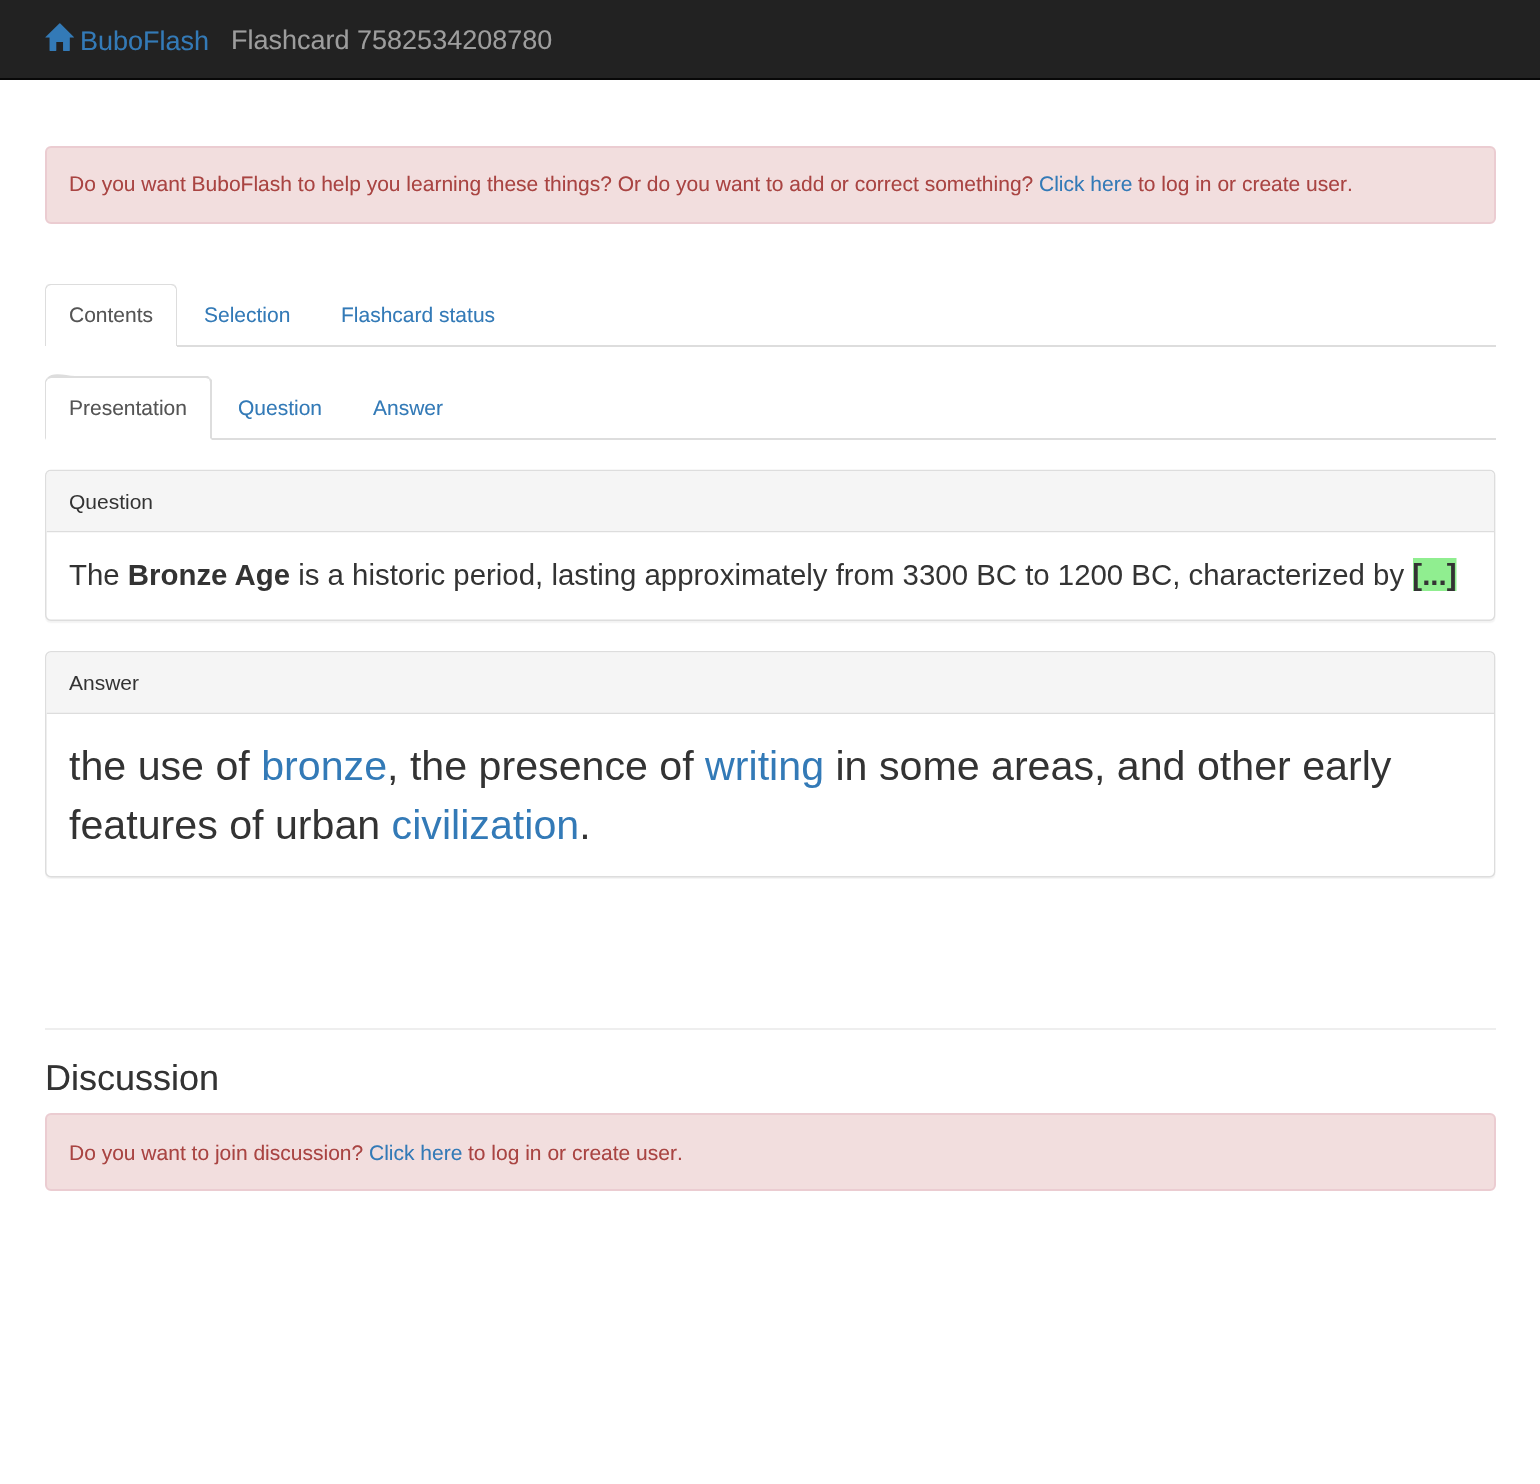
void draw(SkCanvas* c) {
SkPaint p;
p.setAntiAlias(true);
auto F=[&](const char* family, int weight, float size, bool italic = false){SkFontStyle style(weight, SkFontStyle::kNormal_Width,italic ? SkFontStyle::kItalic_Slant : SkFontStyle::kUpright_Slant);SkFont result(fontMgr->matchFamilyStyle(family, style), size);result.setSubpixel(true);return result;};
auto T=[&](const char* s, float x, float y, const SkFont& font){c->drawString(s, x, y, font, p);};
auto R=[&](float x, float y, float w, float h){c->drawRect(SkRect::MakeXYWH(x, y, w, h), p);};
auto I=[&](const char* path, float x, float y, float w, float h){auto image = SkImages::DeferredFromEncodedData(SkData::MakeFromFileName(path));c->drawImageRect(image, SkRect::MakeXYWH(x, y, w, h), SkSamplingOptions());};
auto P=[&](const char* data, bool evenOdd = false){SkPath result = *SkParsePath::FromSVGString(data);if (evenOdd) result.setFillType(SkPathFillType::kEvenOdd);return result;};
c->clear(0xffffffff);
p.setColor(0xff222222);
R(0,0,1540,78);
p.setColor(0xff080808);
R(0,78,1540,2);
I("1.png",45,23,29,28);
auto f1 = F("Liberation Sans",400,27);
p.setColor(0xff337ab7);
T("BuboFlash",80,50,f1);
p.setColor(0xff9d9d9d);
T("Flashcard 7582534208780",231,49,f1);
p.setColor(0xfff2dede);
c->drawRoundRect(SkRect::MakeXYWH(46,147,1449,76),5,5,p);
p.setStroke(true);
p.setStrokeWidth(2);
p.setColor(0xffebccd1);
c->drawRoundRect(SkRect::MakeXYWH(46,147,1449,76),5,5,p);
auto f2 = F("Liberation Sans",400,21);
p.setStroke(false);
p.setColor(0xffa94442);
T("Do you want BuboFlash to help you learning these things? Or do you want to add or correct something?",69,191,f2);
p.setColor(0xff337ab7);
T("Click here",1039,191,f2);
p.setColor(0xffa94442);
T("to log in or create user.",1138,191,f2);
p.setColor(0xffdddddd);
R(177,345,1319,2);
c->drawPath(P("M51 284c-1 0-3 0-4 1l1 1l3-1h120l3 1l1-1c-1-1-3-1-4-1z"),p);
c->drawPath(P("M175 285c1 1 2 3 2 5v56h-1v-1v-56l-2-3z"),p);
c->drawPath(P("M45 290v56h1v-1v-56l2-3l-1-1c-1 1-2 3-2 5z"),p);
p.setColor(0xff555555);
T("Contents",69,322,f2);
p.setColor(0xff337ab7);
T("Selection",204,322,f2);
T("Flashcard status",341,322,f2);
p.setColor(0xffdddddd);
R(212,438,1284,2);
c->drawPath(P("M51 378l-3 1l-1-1c6-7 19-2 28-2h133l2 2l-1 1l-3-1z"),p);
c->drawPath(P("M210 378l2 2v60l-2-2v-56l-1-3z"),p);
c->drawPath(P("M45 440l1-2v-56l2-3l-1-1c-1 1-2 3-2 4z"),p);
p.setColor(0xff555555);
T("Presentation",69,415,f2);
p.setColor(0xff337ab7);
T("Question",238,415,f2);
T("Answer",373,415,f2);
I("2.png",45,469,1451,410);
p.setColor(0xffeeeeee);
R(45,1028,1451,2);
auto f3 = F("Liberation Sans",400,36);
p.setColor(0xff333333);
T("Discussion",45,1090,f3);
p.setColor(0xfff2dede);
c->drawRoundRect(SkRect::MakeXYWH(46,1114,1449,76),5,5,p);
p.setStroke(true);
p.setColor(0xffebccd1);
c->drawRoundRect(SkRect::MakeXYWH(46,1114,1449,76),5,5,p);
p.setStroke(false);
p.setColor(0xffa94442);
T("Do you want to join discussion?",69,1160,f2);
p.setColor(0xff337ab7);
T("Click here",369,1160,f2);
p.setColor(0xffa94442);
T("to log in or create user.",468,1160,f2);
}
